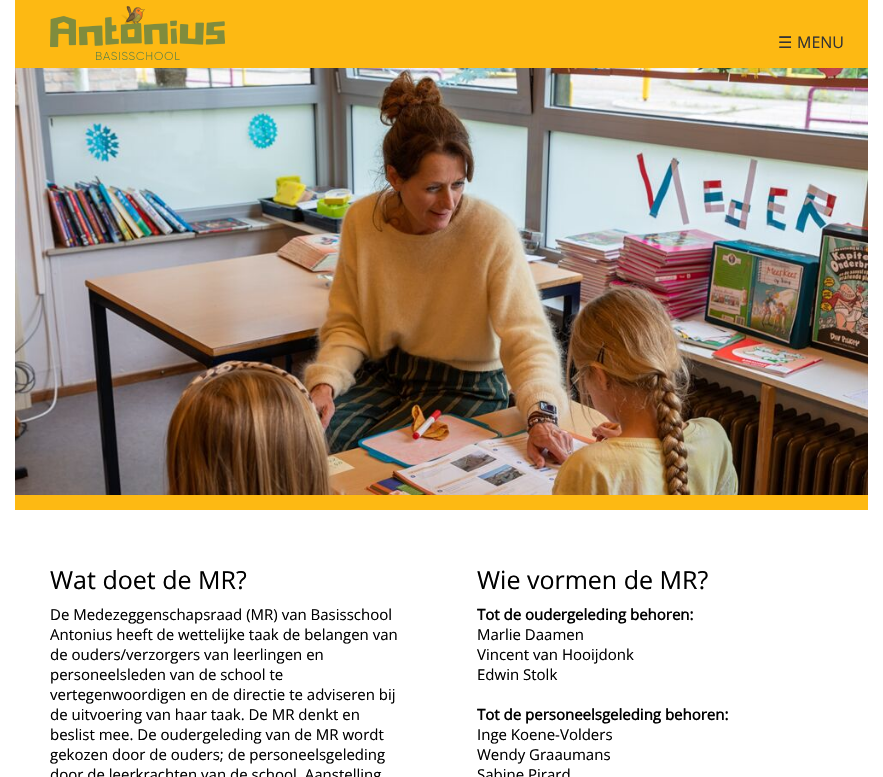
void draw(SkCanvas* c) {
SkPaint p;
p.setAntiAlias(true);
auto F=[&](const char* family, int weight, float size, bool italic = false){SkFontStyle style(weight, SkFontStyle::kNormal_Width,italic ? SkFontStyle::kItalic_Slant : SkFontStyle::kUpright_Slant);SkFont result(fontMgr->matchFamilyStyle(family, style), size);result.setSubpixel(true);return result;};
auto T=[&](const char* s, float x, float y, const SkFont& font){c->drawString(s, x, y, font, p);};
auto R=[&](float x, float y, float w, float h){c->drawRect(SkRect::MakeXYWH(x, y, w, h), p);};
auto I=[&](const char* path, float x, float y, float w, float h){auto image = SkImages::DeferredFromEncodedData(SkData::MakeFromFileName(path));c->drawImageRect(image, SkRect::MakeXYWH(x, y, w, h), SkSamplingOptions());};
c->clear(0xffffffff);
p.setColor(0xfffdb913);
R(15,0,853,68);
I("1.png",50,6,175,54);
auto f1 = F("DejaVu Sans",400,16);
p.setColor(0xff333333);
T("☰",778,48,f1);
auto f2 = F("Open Sans",400,16);
T("MENU",797,48,f2);
I("2.png",15,68,853,427);
p.setColor(0xfffdb913);
R(15,495,853,15);
auto f3 = F("Open Sans",400,25);
p.setColor(0xff000000);
T("Wat doet de MR?",50,589,f3);
auto f4 = F("Open Sans",400,15);
T("De Medezeggenschapsraad (MR) van Basisschool",50,620,f4);
T("Antonius heeft de wettelijke taak de belangen van",50,640,f4);
T("de ouders/verzorgers van leerlingen en",50,660,f4);
T("personeelsleden van de school te",50,680,f4);
T("vertegenwoordigen en de directie te adviseren bij",50,700,f4);
T("de uitvoering van haar taak. De MR denkt en",50,720,f4);
T("beslist mee. De oudergeleding van de MR wordt",50,740,f4);
T("gekozen door de ouders; de personeelsgeleding",50,760,f4);
T("door de leerkrachten van de school. Aanstelling",50,780,f4);
T("Wie vormen de MR?",477,589,f3);
auto f5 = F("Open Sans",700,15);
T("Tot de oudergeleding behoren:",477,620,f5);
T("Marlie Daamen",477,640,f4);
T("Vincent van Hooijdonk",477,660,f4);
T("Edwin Stolk",477,680,f4);
T("Tot de personeelsgeleding behoren:",477,720,f5);
T("Inge Koene-Volders",477,740,f4);
T("Wendy Graaumans",477,760,f4);
T("Sabine Pirard",477,780,f4);
}
